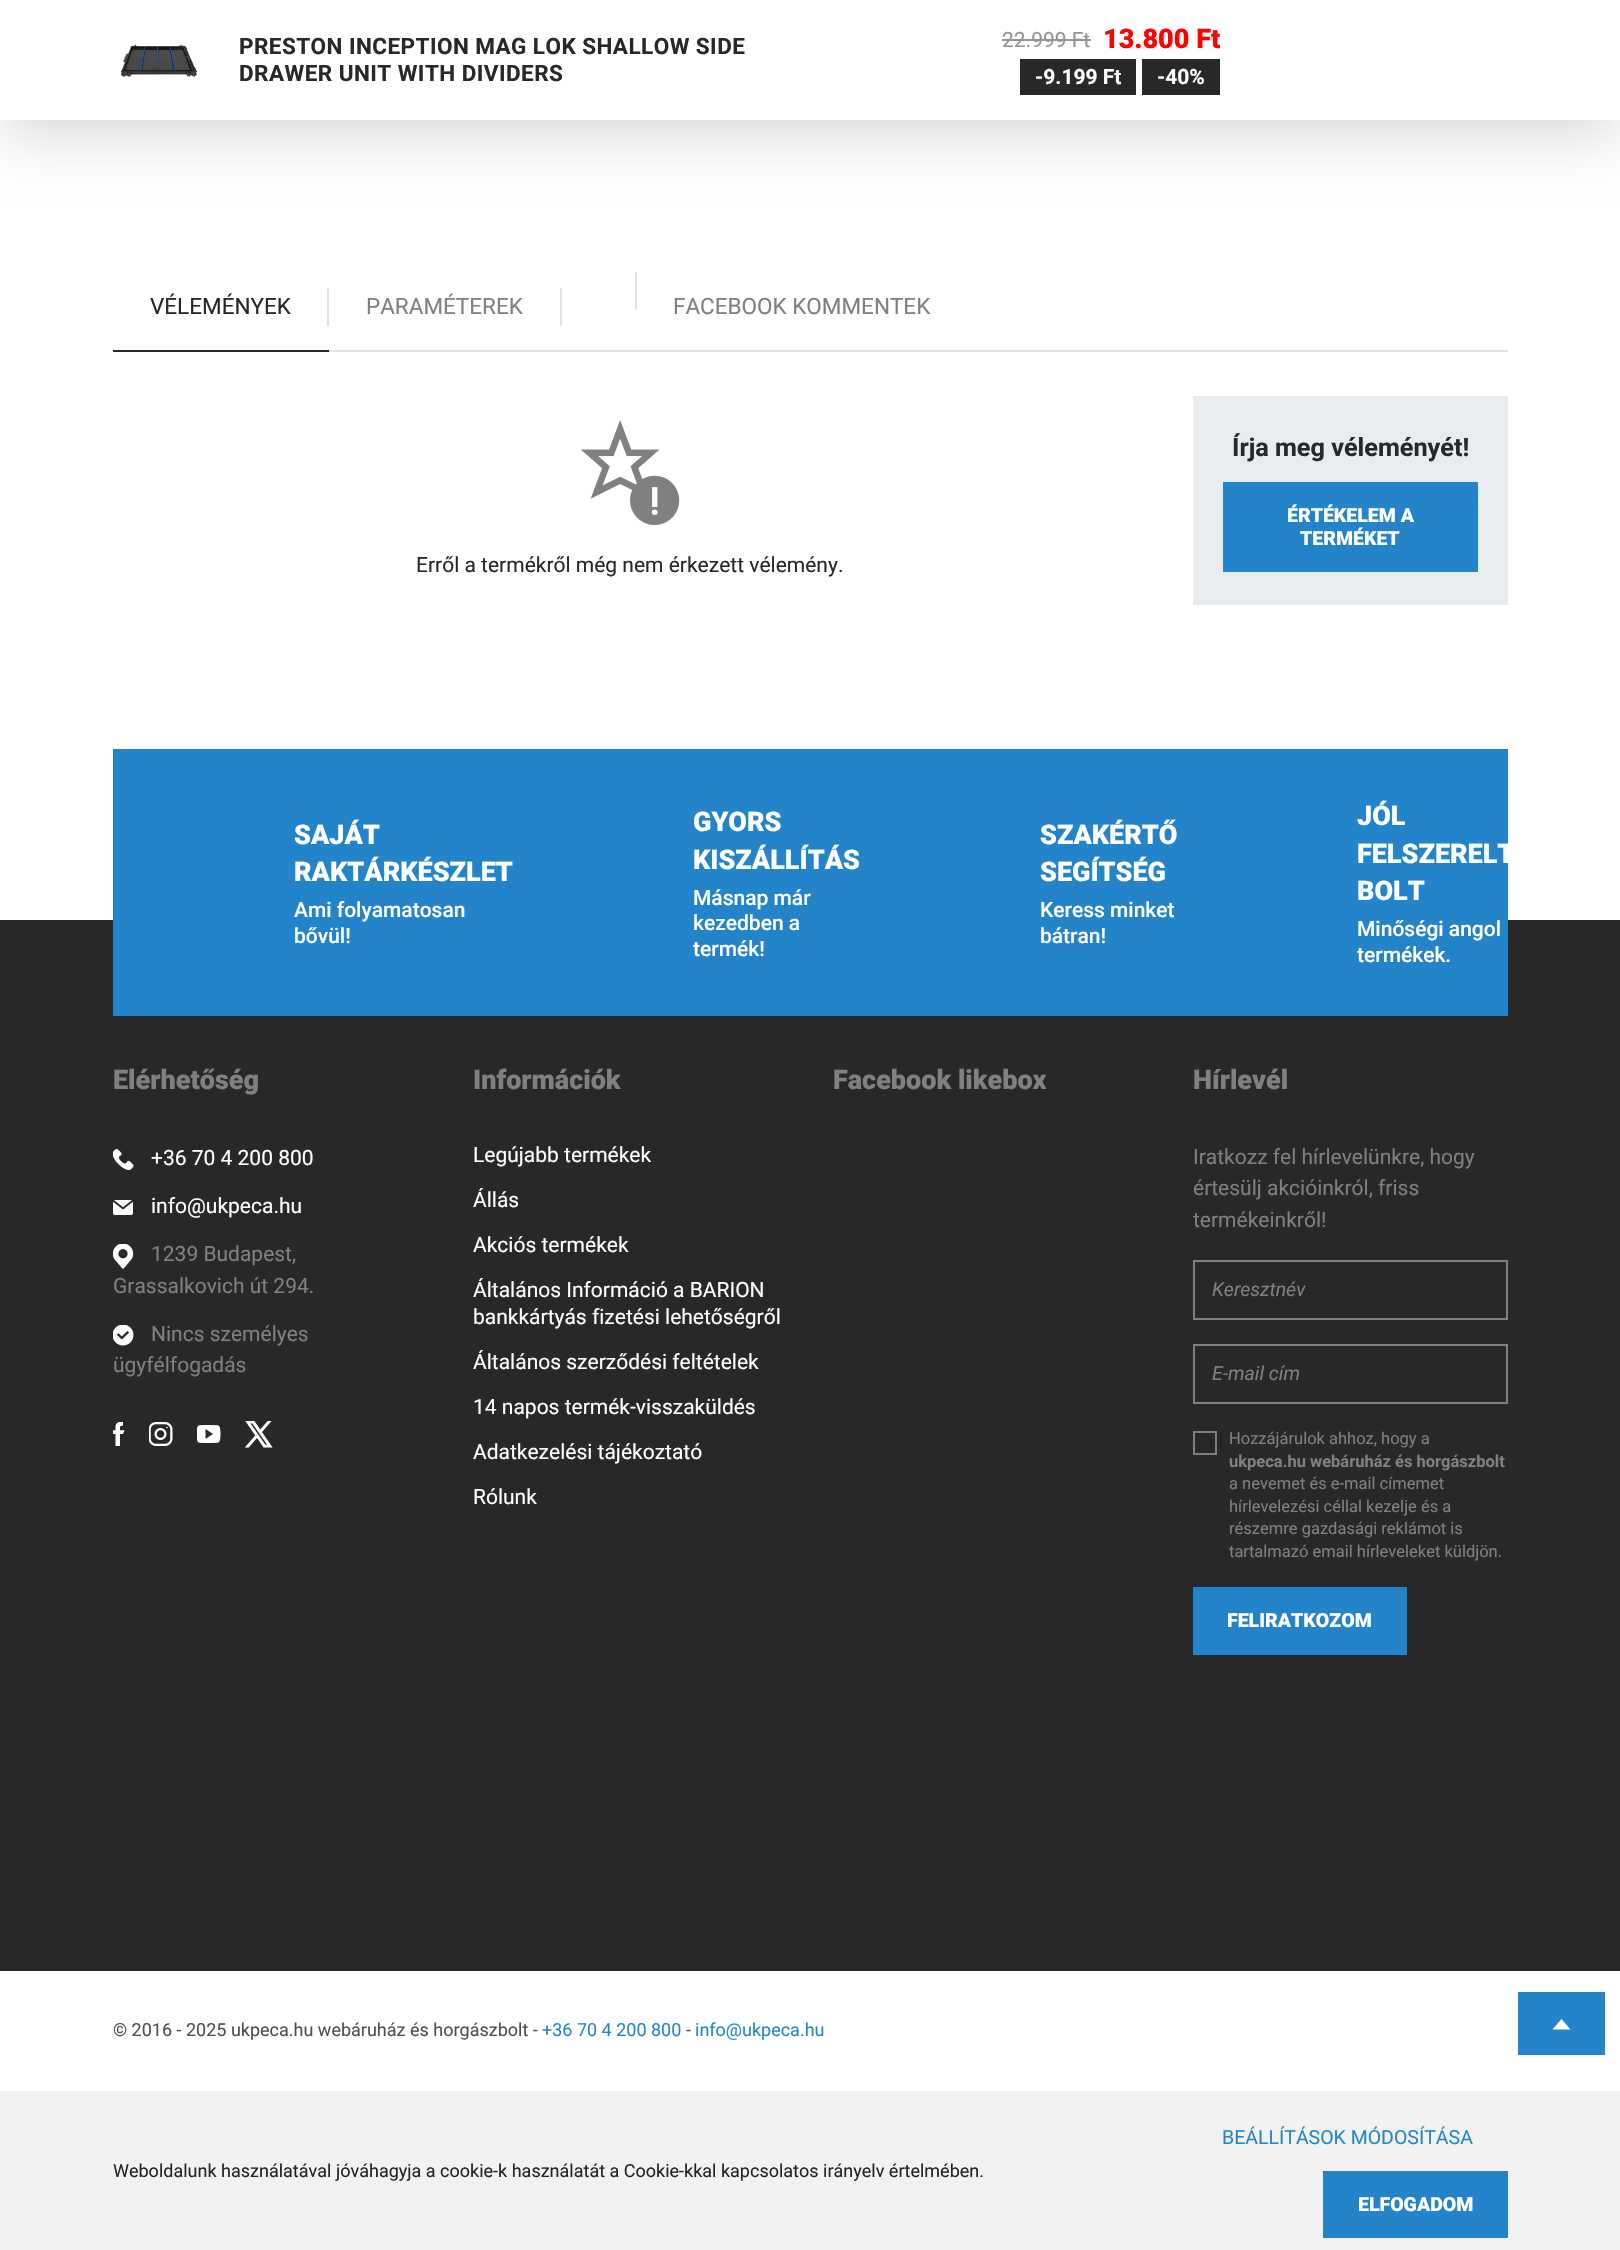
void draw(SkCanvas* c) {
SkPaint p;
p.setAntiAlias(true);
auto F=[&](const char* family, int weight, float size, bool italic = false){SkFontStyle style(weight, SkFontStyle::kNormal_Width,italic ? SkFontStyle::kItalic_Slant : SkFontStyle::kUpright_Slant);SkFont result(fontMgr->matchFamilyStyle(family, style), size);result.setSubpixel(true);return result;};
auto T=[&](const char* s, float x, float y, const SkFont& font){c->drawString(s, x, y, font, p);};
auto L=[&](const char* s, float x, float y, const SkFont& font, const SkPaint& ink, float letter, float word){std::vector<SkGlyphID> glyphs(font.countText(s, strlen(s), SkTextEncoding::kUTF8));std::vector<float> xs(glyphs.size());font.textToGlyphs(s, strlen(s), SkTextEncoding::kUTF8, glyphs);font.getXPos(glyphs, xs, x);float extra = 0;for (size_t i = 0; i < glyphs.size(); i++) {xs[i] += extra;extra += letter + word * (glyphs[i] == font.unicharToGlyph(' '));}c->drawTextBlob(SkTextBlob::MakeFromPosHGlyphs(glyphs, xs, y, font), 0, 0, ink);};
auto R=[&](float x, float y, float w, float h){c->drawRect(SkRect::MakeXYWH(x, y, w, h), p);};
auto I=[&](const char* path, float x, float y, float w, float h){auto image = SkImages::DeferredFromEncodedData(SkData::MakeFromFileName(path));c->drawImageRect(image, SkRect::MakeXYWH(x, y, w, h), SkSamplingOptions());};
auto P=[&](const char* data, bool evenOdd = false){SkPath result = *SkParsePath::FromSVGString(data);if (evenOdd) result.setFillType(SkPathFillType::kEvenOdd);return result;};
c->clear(0xffffffff);
p.setColor(0x26000000);
p.setMaskFilter(SkMaskFilter::MakeBlur(kNormal_SkBlurStyle, 30));
c->drawRect(SkRect::MakeXYWH(0,15,1620,120),p);
p.setMaskFilter(nullptr);
p.setColor(0xffffffff);
R(0,0,1620,120);
I("1.png",121,44,76,33);
auto f1 = F("Roboto",700,22.5);
p.setColor(0xff282729);
L("PRESTON INCEPTION MAG LOK SHALLOW SIDE",239,54,f1,p,.45,0);
L("DRAWER UNIT WITH DIVIDERS",239,81,f1,p,.45,0);
auto f2 = F("Roboto",400,21);
p.setColor(0xff929597);
T("22.999 Ft",1002,47,f2);
R(1002,39,89,2);
auto f3 = F("Roboto",900,27);
p.setColor(0xffff0000);
T("13.800 Ft",1103,48,f3);
p.setColor(0xff282729);
R(1020,59,116,36);
auto f4 = F("Roboto",700,21);
p.setColor(0xffffffff);
T("-9.199 Ft",1035,84,f4);
p.setColor(0xff282729);
R(1142,59,78,36);
p.setColor(0xffffffff);
T("-40%",1157,84,f4);
p.setColor(0xffe2e2e2);
R(329,350,1179,2);
p.setColor(0xff282729);
R(113,350,216,2);
auto f5 = F("Roboto",400,22.5);
T("VÉLEMÉNYEK",150,314,f5);
p.setColor(0xffe2e2e2);
R(327,288,2,38);
p.setColor(0xff808080);
T("PARAMÉTEREK",366,314,f5);
p.setColor(0xffe2e2e2);
R(560,288,2,38);
R(635,272,2,37);
p.setColor(0xff808080);
T("FACEBOOK KOMMENTEK",673,314,f5);
p.setColor(0xffe9ecef);
R(1193,396,315,209);
auto f6 = F("Roboto",700,25.25);
p.setColor(0xff282729);
T("Írja meg véleményét!",1232,456,f6);
p.setColor(0xff2384c9);
R(1223,482,255,90);
auto f7 = F("Roboto",900,19.5);
p.setColor(0xffffffff);
T("ÉRTÉKELEM A",1287,522,f7);
T("TERMÉKET",1300,545,f7);
I("2.png",581,420,99,105);
p.setColor(0xff282729);
T("Erről a termékről még nem érkezett vélemény.",416,572,f2);
R(0,920,1620,1051);
p.setColor(0xff2384c9);
R(113,749,1395,267);
p.setColor(0xffffffff);
T("SAJÁT",294,844,f3);
T("RAKTÁRKÉSZLET",294,881,f3);
auto f8 = F("Roboto",500,21);
T("Ami folyamatosan",294,917,f8);
T("bővül!",294,943,f8);
T("GYORS",693,831,f3);
T("KISZÁLLÍTÁS",693,869,f3);
T("Másnap már",693,905,f8);
T("kezedben a",693,930,f8);
T("termék!",693,956,f8);
T("SZAKÉRTŐ",1040,844,f3);
T("SEGÍTSÉG",1040,881,f3);
T("Keress minket",1040,917,f8);
T("bátran!",1040,943,f8);
T("JÓL",1357,825,f3);
T("FELSZERELT",1357,863,f3);
T("BOLT",1357,900,f3);
T("Minőségi angol",1357,936,f8);
T("termékek.",1357,962,f8);
p.setColor(0xff808080);
T("Elérhetőség",113,1089,f3);
I("3.png",113,1149,21,21);
p.setColor(0xffffffff);
T("+36 70 4 200 800",151,1165,f2);
I("4.png",113,1200,20,15);
T("info@ukpeca.hu",151,1213,f2);
I("5.png",113,1244,21,25);
p.setColor(0xff808080);
T("1239 Budapest,",151,1261,f2);
T("Grassalkovich út 294.",113,1293,f2);
I("6.png",113,1325,21,21);
T("Nincs személyes",151,1341,f2);
T("ügyfélfogadás",113,1372,f2);
I("7.png",113,1422,12,24);
I("8.png",149,1422,24,24);
I("9.png",197,1425,24,18);
I("10.png",245,1421,28,27);
T("Információk",473,1089,f3);
p.setColor(0xffffffff);
T("Legújabb termékek",473,1162,f2);
T("Állás",473,1207,f2);
T("Akciós termékek",473,1252,f2);
T("Általános Információ a BARION",473,1297,f2);
T("bankkártyás fizetési lehetőségről",473,1324,f2);
T("Általános szerződési feltételek",473,1369,f2);
T("14 napos termék-visszaküldés",473,1414,f2);
T("Adatkezelési tájékoztató",473,1459,f2);
T("Rólunk",473,1504,f2);
p.setColor(0xff808080);
T("Facebook likebox",833,1089,f3);
T("Hírlevél",1193,1089,f3);
T("Iratkozz fel hírlevelünkre, hogy",1193,1164,f2);
T("értesülj akcióinkról, friss",1193,1195,f2);
T("termékeinkről!",1193,1227,f2);
p.setStroke(true);
p.setStrokeWidth(2);
c->drawRect(SkRect::MakeXYWH(1194,1261,313,58),p);
auto f9 = F("Roboto",400,19.5,true);
p.setStroke(false);
T("Keresztnév",1212,1296,f9);
p.setStroke(true);
c->drawRect(SkRect::MakeXYWH(1194,1345,313,58),p);
p.setStroke(false);
T("E-mail cím",1212,1380,f9);
p.setStroke(true);
c->drawRect(SkRect::MakeXYWH(1194,1432,22,22),p);
auto f10 = F("Roboto",400,16.5);
p.setStroke(false);
T("Hozzájárulok ahhoz, hogy a",1229,1444,f10);
auto f11 = F("Roboto",700,16.5);
T("ukpeca.hu webáruház és horgászbolt",1229,1467,f11);
T("a nevemet és e-mail címemet",1229,1489,f10);
T("hírlevelezési céllal kezelje és a",1229,1512,f10);
T("részemre gazdasági reklámot is",1229,1534,f10);
T("tartalmazó email hírleveleket küldjön.",1229,1557,f10);
p.setColor(0xff2384c9);
R(1193,1587,214,68);
p.setColor(0xffffffff);
T("FELIRATKOZOM",1227,1627,f7);
auto f12 = F("Roboto",400,18);
p.setColor(0xff495057);
T("© 2016 - 2025 ukpeca.hu webáruház és horgászbolt -",113,2036,f12);
p.setColor(0xff2488c7);
T("+36 70 4 200 800",542,2036,f12);
p.setColor(0xff495057);
T("-",686,2036,f12);
p.setColor(0xff2488c7);
T("info@ukpeca.hu",695,2036,f12);
p.setColor(0xff2384c9);
R(1518,1992,87,63);
p.setColor(0xffffffff);
c->drawPath(P("M1570.5 2029.5l-9-10.5l-9 10.5z"),p);
p.setColor(0xfff2f2f2);
R(0,2091,1620,159);
p.setColor(0xff212529);
T("Weboldalunk használatával jóváhagyja a cookie-k használatát a Cookie-kkal kapcsolatos irányelv értelmében.",113,2177,f12);
auto f13 = F("Roboto",400,19.5);
p.setColor(0xff2488c7);
T("BEÁLLÍTÁSOK MÓDOSÍTÁSA",1222,2144,f13);
p.setColor(0xff2384c9);
R(1323,2171,185,67);
p.setColor(0xffffffff);
T("ELFOGADOM",1358,2211,f7);
}
